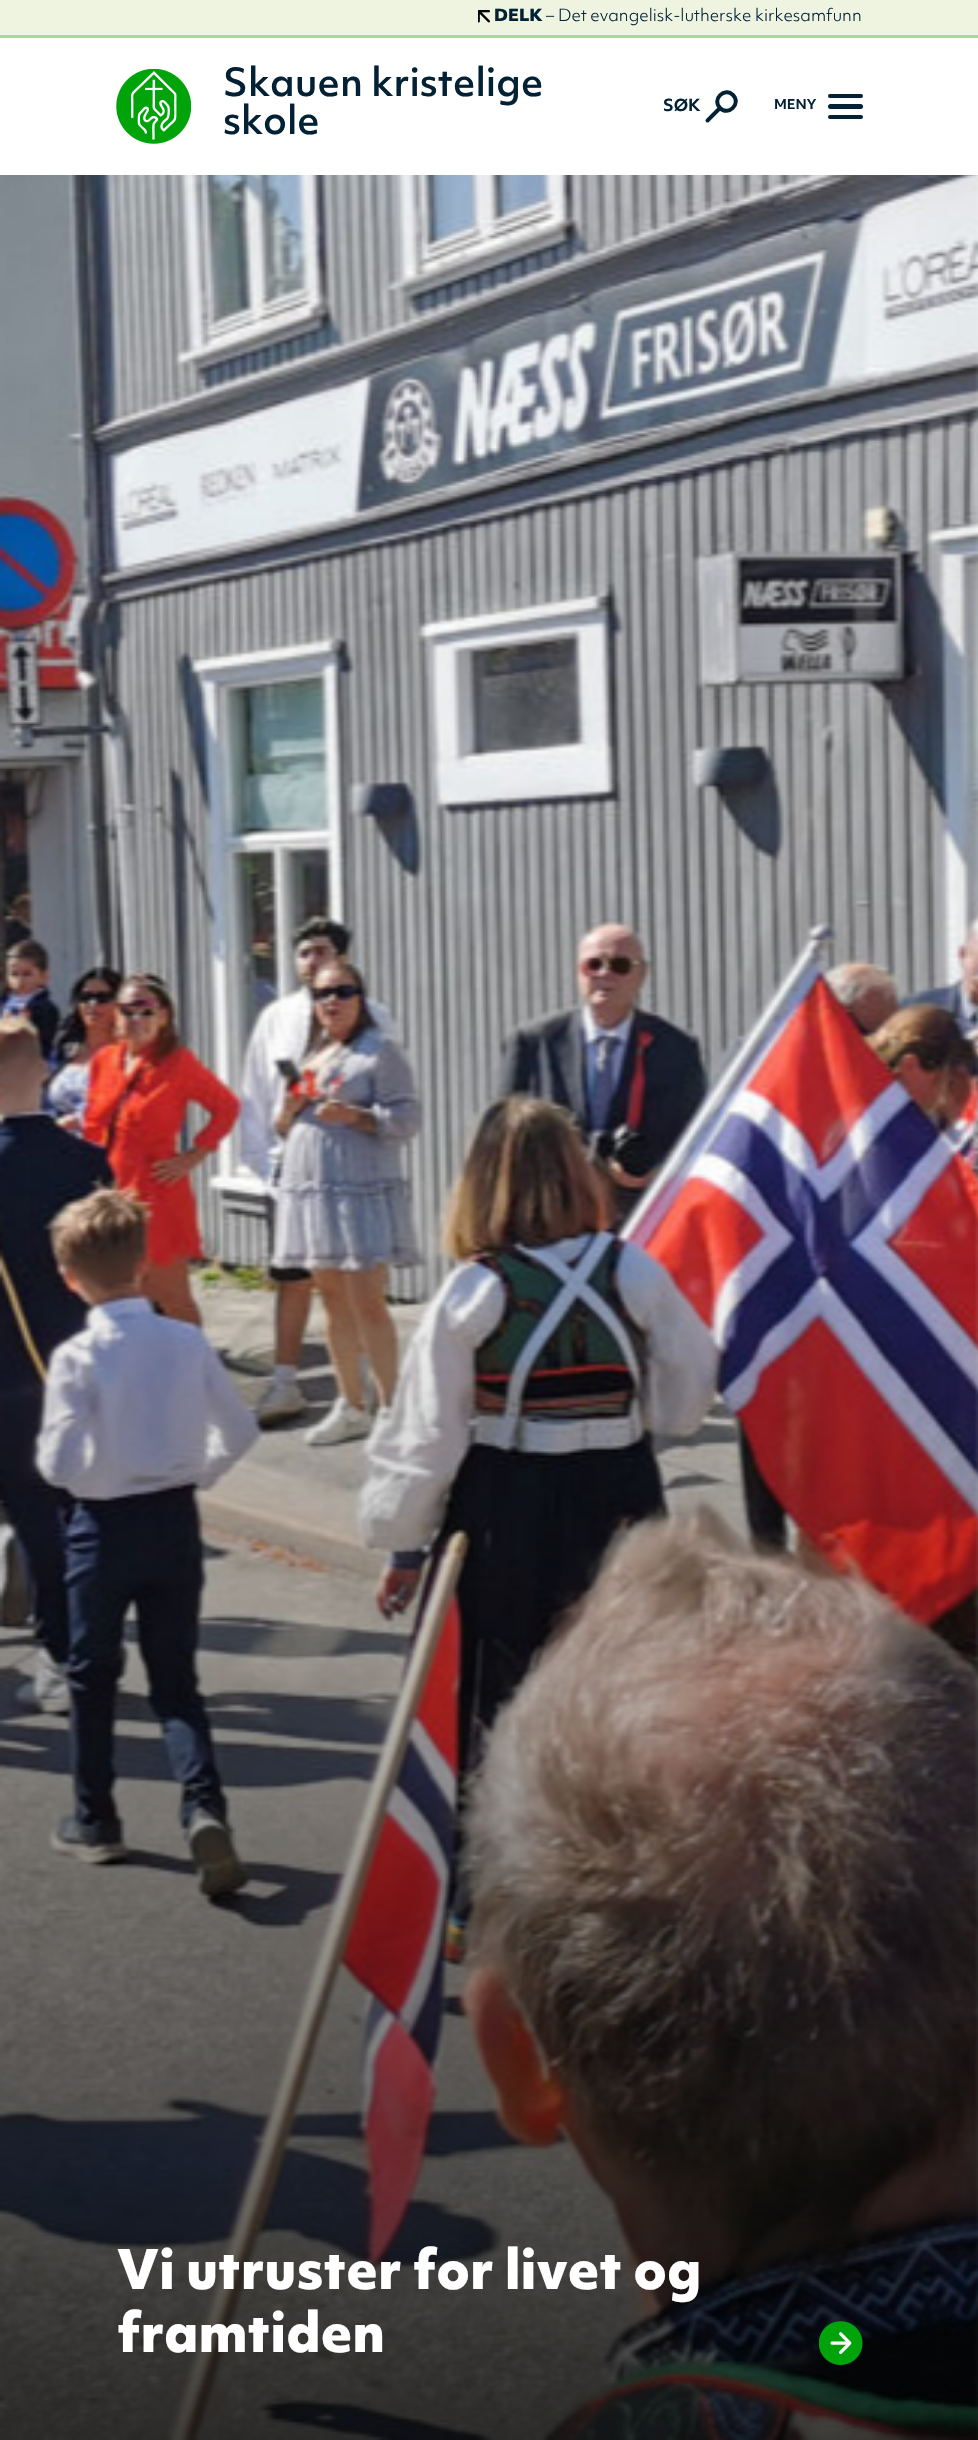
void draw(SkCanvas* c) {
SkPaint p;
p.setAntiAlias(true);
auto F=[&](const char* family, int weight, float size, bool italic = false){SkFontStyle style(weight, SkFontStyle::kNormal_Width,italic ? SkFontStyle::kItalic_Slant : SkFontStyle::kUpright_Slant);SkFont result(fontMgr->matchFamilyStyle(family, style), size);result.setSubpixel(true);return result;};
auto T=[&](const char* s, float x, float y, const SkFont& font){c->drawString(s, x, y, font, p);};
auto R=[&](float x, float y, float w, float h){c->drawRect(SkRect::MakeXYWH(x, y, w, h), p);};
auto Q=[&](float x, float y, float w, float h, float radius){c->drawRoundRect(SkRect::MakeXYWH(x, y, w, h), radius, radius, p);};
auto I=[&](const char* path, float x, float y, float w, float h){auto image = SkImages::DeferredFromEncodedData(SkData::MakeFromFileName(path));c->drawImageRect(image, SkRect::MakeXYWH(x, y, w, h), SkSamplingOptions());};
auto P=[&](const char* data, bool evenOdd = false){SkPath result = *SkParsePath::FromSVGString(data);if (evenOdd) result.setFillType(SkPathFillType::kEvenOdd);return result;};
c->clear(0xffffffff);
p.setColor(0xffeff4e1);
R(0,0,978,35);
p.setColor(0xffa1de91);
R(0,35,978,3);
I("1.png",478,10,12,13);
auto f1 = F("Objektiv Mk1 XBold",700,16.25);
p.setColor(0xff022135);
T("DELK",494,21,f1);
auto f2 = F("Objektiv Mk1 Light",300,16.25);
T("– Det evangelisk-lutherske kirkesamfunn",546,21,f2);
I("2.png",116,69,75,75);
auto f3 = F("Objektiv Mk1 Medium",500,37.5);
T("Skauen kristelige",223,96,f3);
T("skole",223,134,f3);
auto f4 = F("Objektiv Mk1",700,16);
T("SØK",663,111,f4);
p.setStroke(true);
p.setStrokeWidth(3.9);
p.setStrokeCap(SkPaint::kRound_Cap);
p.setStrokeJoin(SkPaint::kRound_Join);
c->drawPath(P("M720 108c8.5 8.5 21.5-4.5 13-13c-8.5-8.5-21.5 4.5-13 13l-12.5 12.5"),p);
auto f5 = F("Objektiv Mk1",700,13);
p.setStroke(false);
T("MENY",774,109,f5);
Q(828,104,35,5,2.5);
Q(828,94,35,4,2);
Q(828,115,35,4,2);
I("3.png",0,175,978,2265);
{
const SkColor colors[] = {0xbf000000,0x80000000,0x00000000};
const float stops[] = {0,.15,.5};
const SkPoint ends[] = {{489,2440}, {489,0}};
p.setShader(SkGradientShader::MakeLinear(ends, colors, stops, 3, SkTileMode::kClamp));
p.setAlpha(255);
}
R(0,1257,978,1183);
auto f6 = F("Objektiv Mk1 XBold",700,52.5);
p.setShader(nullptr);
p.setColor(0xffffffff);
T("Vi utruster for livet og",117,2289,f6);
T("framtiden",117,2352,f6);
I("4.png",819,2321,44,44);
}
